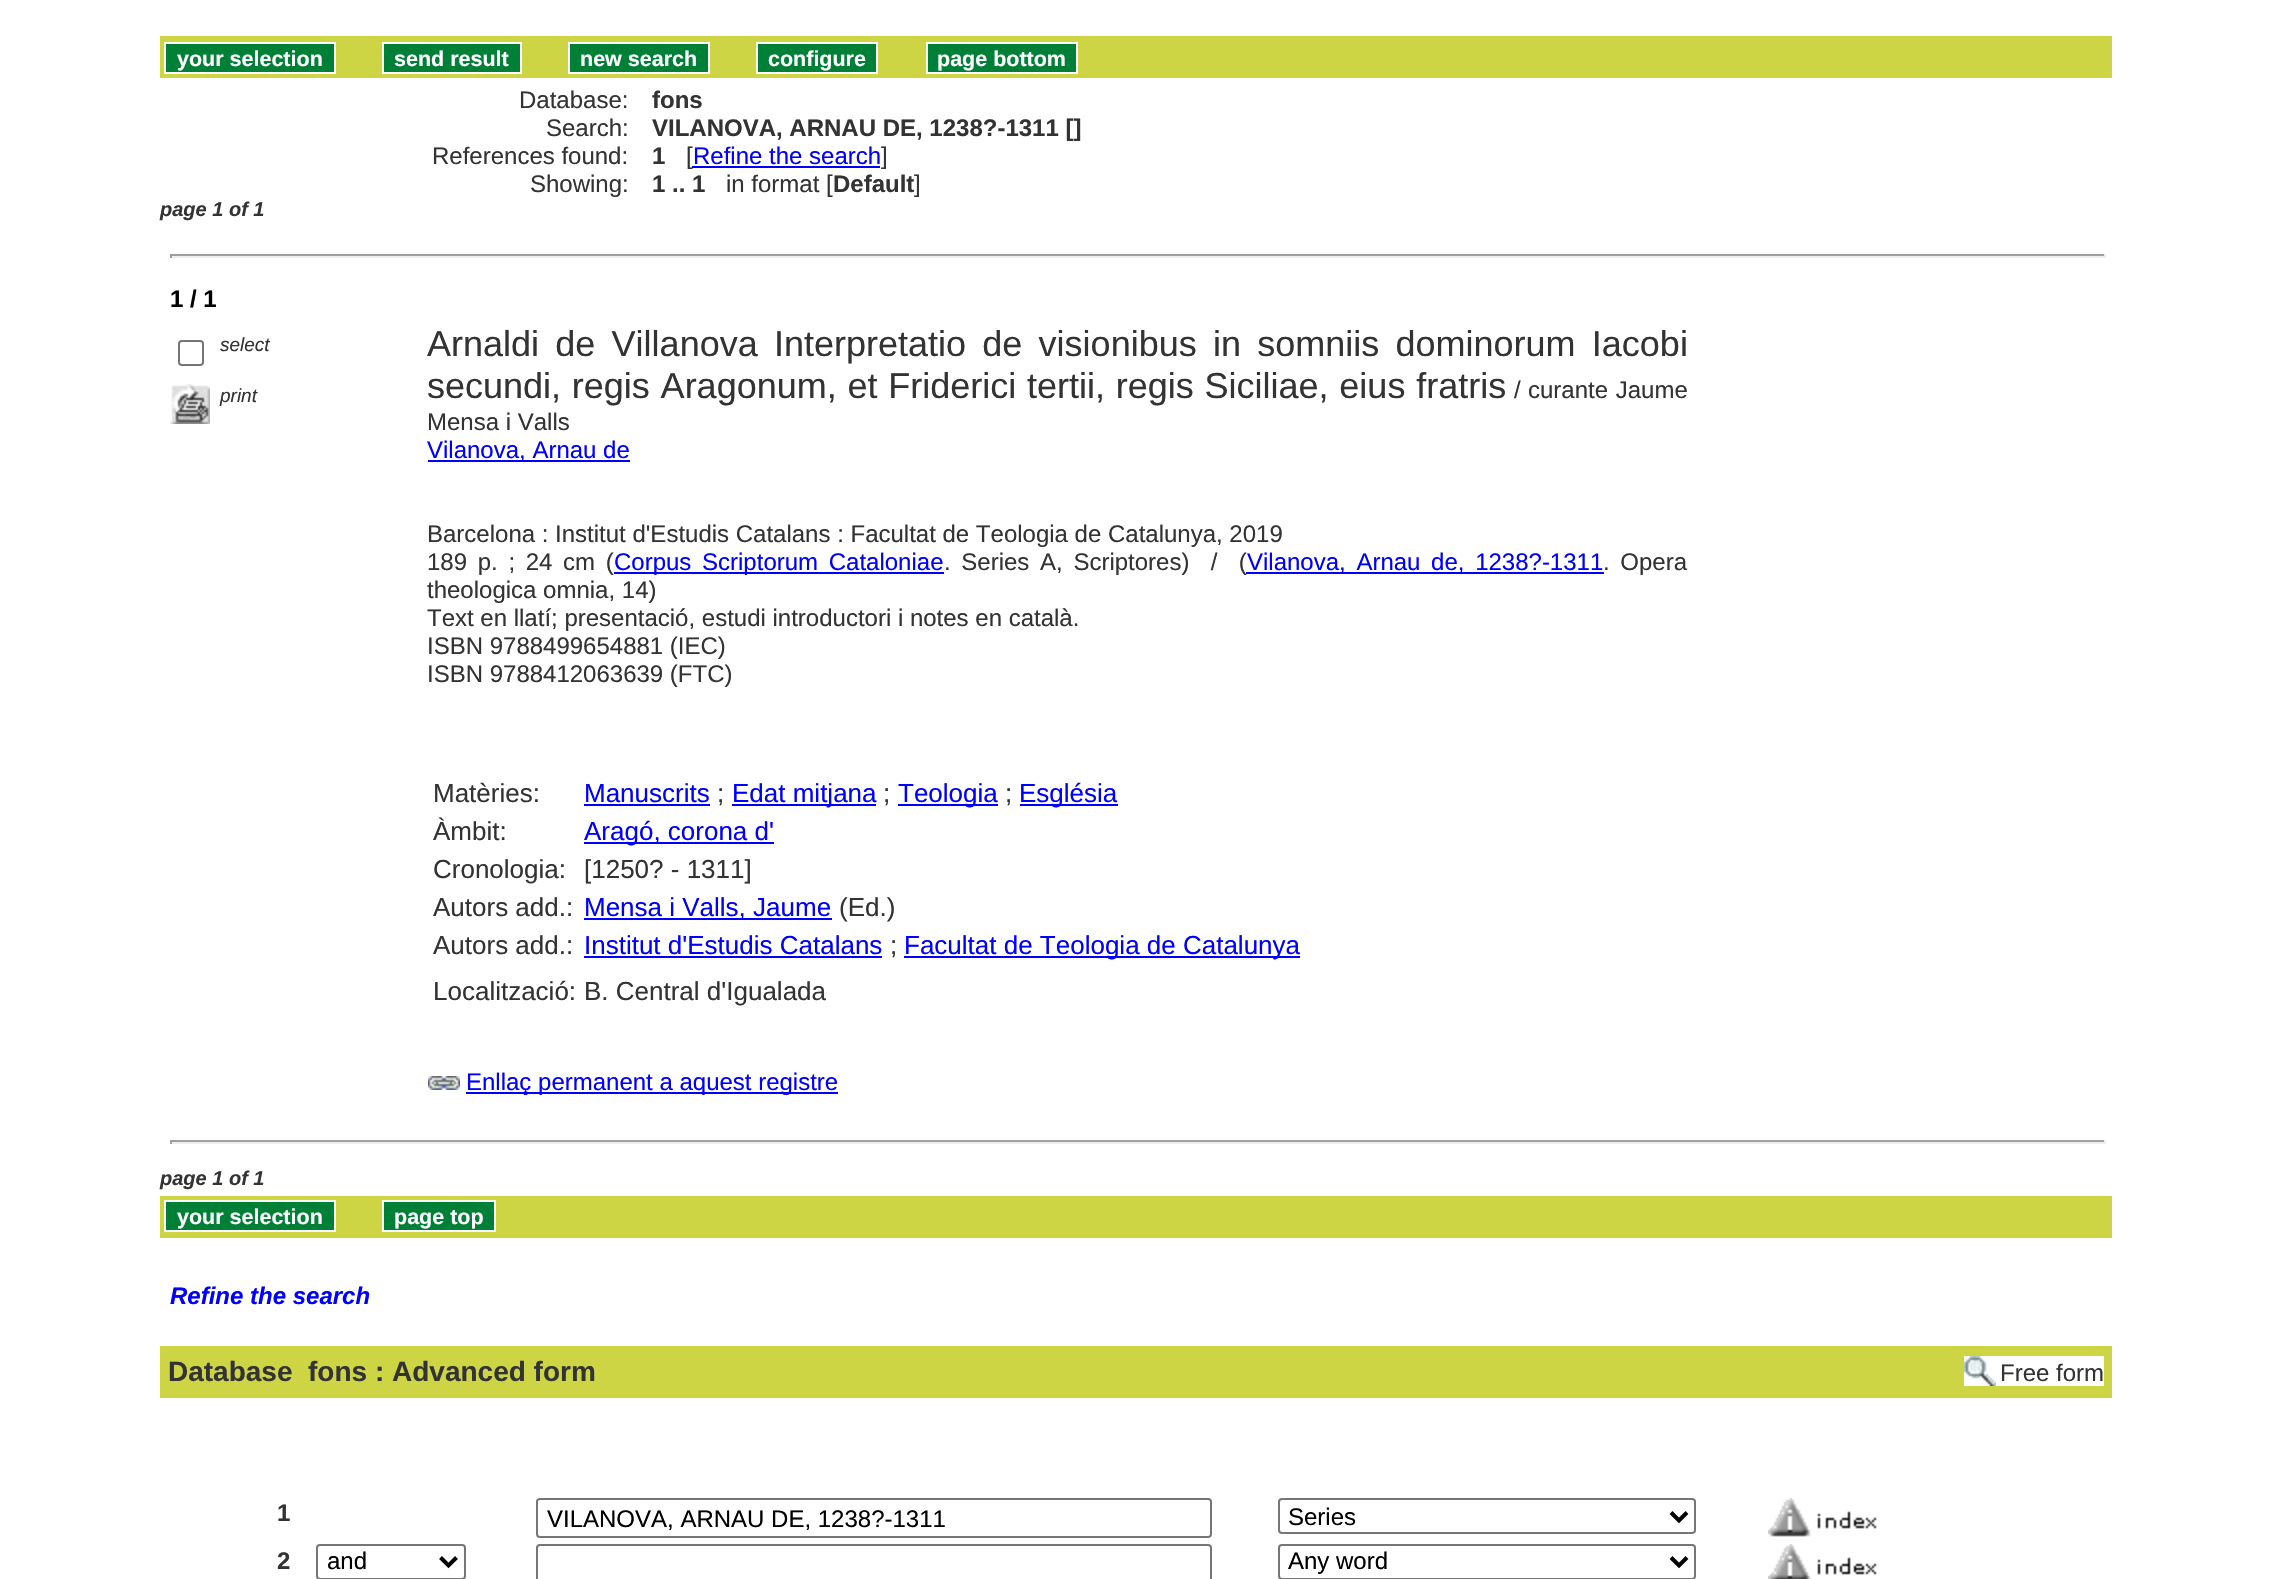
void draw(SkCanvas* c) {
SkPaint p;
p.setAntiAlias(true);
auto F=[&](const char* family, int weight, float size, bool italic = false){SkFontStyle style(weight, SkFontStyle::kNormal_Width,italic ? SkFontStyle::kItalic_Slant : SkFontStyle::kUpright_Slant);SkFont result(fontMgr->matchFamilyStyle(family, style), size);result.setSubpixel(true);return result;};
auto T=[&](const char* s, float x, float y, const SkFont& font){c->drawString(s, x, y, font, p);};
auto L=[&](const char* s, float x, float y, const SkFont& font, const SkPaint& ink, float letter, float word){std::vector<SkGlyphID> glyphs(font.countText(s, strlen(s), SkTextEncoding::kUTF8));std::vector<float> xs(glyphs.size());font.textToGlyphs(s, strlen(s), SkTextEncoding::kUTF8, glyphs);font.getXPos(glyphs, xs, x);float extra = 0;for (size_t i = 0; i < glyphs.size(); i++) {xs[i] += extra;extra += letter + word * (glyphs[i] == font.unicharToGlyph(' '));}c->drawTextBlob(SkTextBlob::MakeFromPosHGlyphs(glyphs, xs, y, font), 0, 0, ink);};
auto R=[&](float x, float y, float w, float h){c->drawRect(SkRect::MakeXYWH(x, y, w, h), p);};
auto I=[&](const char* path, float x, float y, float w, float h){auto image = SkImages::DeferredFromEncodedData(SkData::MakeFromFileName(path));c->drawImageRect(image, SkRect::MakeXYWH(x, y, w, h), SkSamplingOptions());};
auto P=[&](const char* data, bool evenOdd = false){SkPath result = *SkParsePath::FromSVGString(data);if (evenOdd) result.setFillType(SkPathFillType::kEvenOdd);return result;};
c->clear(0xffffffff);
p.setColor(0xffcdd545);
R(160,36,1952,42);
p.setColor(0xff008037);
c->drawRect(SkRect::MakeXYWH(165,43,170,30),p);
p.setStroke(true);
p.setStrokeWidth(2);
p.setColor(0xffffffff);
c->drawRect(SkRect::MakeXYWH(165,43,170,30),p);
auto f1 = F("Liberation Sans",700,21.5);
p.setStroke(false);
T("your selection",177,66,f1);
p.setColor(0xff008037);
c->drawRect(SkRect::MakeXYWH(383,43,138,30),p);
p.setStroke(true);
p.setColor(0xffffffff);
c->drawRect(SkRect::MakeXYWH(383,43,138,30),p);
p.setStroke(false);
T("send result",394,66,f1);
p.setColor(0xff008037);
c->drawRect(SkRect::MakeXYWH(569,43,140,30),p);
p.setStroke(true);
p.setColor(0xffffffff);
c->drawRect(SkRect::MakeXYWH(569,43,140,30),p);
p.setStroke(false);
T("new search",580,66,f1);
p.setColor(0xff008037);
c->drawRect(SkRect::MakeXYWH(757,43,120,30),p);
p.setStroke(true);
p.setColor(0xffffffff);
c->drawRect(SkRect::MakeXYWH(757,43,120,30),p);
p.setStroke(false);
T("configure",768,66,f1);
p.setColor(0xff008037);
c->drawRect(SkRect::MakeXYWH(927,43,150,30),p);
p.setStroke(true);
p.setColor(0xffffffff);
c->drawRect(SkRect::MakeXYWH(927,43,150,30),p);
p.setStroke(false);
T("page bottom",937,66,f1);
auto f2 = F("Liberation Sans",400,24);
p.setColor(0xff333333);
T("Database:",519,108,f2);
auto f3 = F("Liberation Sans",700,24);
T("fons",652,108,f3);
T("Search:",546,136,f2);
T("VILANOVA, ARNAU DE, 1238?-1311 []",652,136,f3);
T("References found:",432,164,f2);
T("1",652,164,f3);
T("[",686,164,f2);
p.setColor(0xff0000ff);
T("Refine the search",693,164,f2);
R(692,166,188,2);
p.setColor(0xff333333);
T("]",881,164,f2);
T("Showing:",530,192,f2);
T("1 .. 1",652,192,f3);
T("in format [",726,192,f2);
T("Default",833,192,f3);
T("]",914,192,f2);
auto f4 = F("Liberation Sans",700,20,true);
T("page 1 of 1",160,216,f4);
p.setColor(0xff9f9f9f);
R(170,254,1936,2);
p.setColor(0xffeeeeee);
R(2104,254,2,4);
R(170,256,1936,2);
p.setColor(0xff9f9f9f);
R(170,254,2,4);
p.setColor(0xff000000);
T("1 / 1",170,307,f3);
p.setStroke(true);
p.setColor(0xff767676);
c->drawRoundRect(SkRect::MakeXYWH(179,341,24,24),3,3,p);
auto f5 = F("Liberation Sans",400,19,true);
p.setStroke(false);
p.setColor(0xff333333);
T("select",220,351,f5);
I("1.png",170,384,40,40);
T("print",220,402,f5);
auto f6 = F("Liberation Sans",400,36);
L("Arnaldi de Villanova Interpretatio de visionibus in somniis dominorum Iacobi",427,356,f6,p,0,6.25);
L("secundi, regis Aragonum, et Friderici tertii, regis Siciliae, eius fratris",427,398,f6,p,0,.75);
T("/",1514,398,f2);
L("curante Jaume",1528,398,f2,p,0,1);
T("Mensa i Valls",427,430,f2);
p.setColor(0xff0000ff);
R(428,460,202,2);
T("Vilanova, Arnau de",427,458,f2);
p.setColor(0xff333333);
T("Barcelona : Institut d'Estudis Catalans : Facultat de Teologia de Catalunya, 2019",427,542,f2);
L("189 p. ; 24 cm (",427,570,f2,p,0,4);
p.setColor(0xff0000ff);
R(614,572,330,2);
L("Corpus Scriptorum Cataloniae",614,570,f2,p,0,4);
p.setColor(0xff333333);
L(". Series A, Scriptores)  /  (",944,570,f2,p,0,4);
p.setColor(0xff0000ff);
R(1246,572,358,2);
L("Vilanova, Arnau de, 1238?-1311",1247,570,f2,p,0,4);
p.setColor(0xff333333);
L(". Opera",1603,570,f2,p,0,4);
T("theologica omnia, 14)",427,598,f2);
T("Text en llatí; presentació, estudi introductori i notes en català.",427,626,f2);
T("ISBN 9788499654881 (IEC)",427,654,f2);
T("ISBN 9788412063639 (FTC)",427,682,f2);
auto f7 = F("Liberation Sans",400,26);
T("Matèries:",433,802,f7);
p.setColor(0xff0000ff);
T("Manuscrits",584,802,f7);
R(584,804,126,2);
p.setColor(0xff333333);
T(";",717,802,f7);
p.setColor(0xff0000ff);
R(732,804,144,2);
T("Edat mitjana",732,802,f7);
p.setColor(0xff333333);
T(";",883,802,f7);
p.setColor(0xff0000ff);
R(898,804,100,2);
T("Teologia",898,802,f7);
p.setColor(0xff333333);
T(";",1005,802,f7);
p.setColor(0xff0000ff);
R(1020,804,98,2);
T("Església",1019,802,f7);
p.setColor(0xff333333);
T("Àmbit:",433,840,f7);
p.setColor(0xff0000ff);
R(584,842,190,2);
T("Aragó, corona d'",584,840,f7);
p.setColor(0xff333333);
T("Cronologia:",433,878,f7);
T("[1250? - 1311]",584,878,f7);
T("Autors add.:",433,916,f7);
p.setColor(0xff0000ff);
R(584,918,248,2);
T("Mensa i Valls, Jaume",584,916,f7);
p.setColor(0xff333333);
T("(Ed.)",839,916,f7);
T("Autors add.:",433,954,f7);
p.setColor(0xff0000ff);
T("Institut d'Estudis Catalans",584,954,f7);
R(584,956,298,2);
p.setColor(0xff333333);
T(";",890,954,f7);
p.setColor(0xff0000ff);
R(904,956,396,2);
T("Facultat de Teologia de Catalunya",904,954,f7);
p.setColor(0xff333333);
T("Localització:",433,1000,f7);
T("B. Central d'Igualada",584,1000,f7);
I("2.png",428,1076,32,14);
p.setColor(0xff0000ff);
R(466,1092,372,2);
T("Enllaç permanent a aquest registre",466,1090,f2);
p.setColor(0xff9f9f9f);
R(170,1140,1936,2);
p.setColor(0xffeeeeee);
R(2104,1140,2,4);
R(170,1142,1936,2);
p.setColor(0xff9f9f9f);
R(170,1140,2,4);
p.setColor(0xff333333);
T("page 1 of 1",160,1185,f4);
p.setColor(0xffcdd545);
R(160,1196,1952,42);
p.setColor(0xff008037);
c->drawRect(SkRect::MakeXYWH(165,1201,170,30),p);
p.setStroke(true);
p.setColor(0xffffffff);
c->drawRect(SkRect::MakeXYWH(165,1201,170,30),p);
p.setStroke(false);
T("your selection",177,1224,f1);
p.setColor(0xff008037);
c->drawRect(SkRect::MakeXYWH(383,1201,112,30),p);
p.setStroke(true);
p.setColor(0xffffffff);
c->drawRect(SkRect::MakeXYWH(383,1201,112,30),p);
p.setStroke(false);
T("page top",394,1224,f1);
auto f8 = F("Liberation Sans",700,24,true);
p.setColor(0xff0000ff);
T("Refine the search",170,1304,f8);
p.setColor(0xffcdd545);
R(160,1346,1952,52);
auto f9 = F("Liberation Sans",700,28);
p.setColor(0xff333333);
T("Database",168,1381,f9);
T("fons : Advanced form",308,1381,f9);
p.setColor(0xffffffff);
R(1964,1356,140,30);
I("3.png",1964,1356,32,30);
p.setColor(0xff333333);
T("Free form",2000,1381,f2);
T("1",277,1521,f3);
p.setStroke(true);
p.setColor(0xff767676);
c->drawRoundRect(SkRect::MakeXYWH(537,1499,674,38),3,3,p);
p.setStroke(false);
p.setColor(0xff000000);
T("VILANOVA, ARNAU DE, 1238?-1311",547,1527,f2);
p.setStroke(true);
p.setColor(0xff767676);
c->drawRoundRect(SkRect::MakeXYWH(1279,1499,416,34),3,3,p);
p.setStrokeWidth(4);
p.setColor(0xff000000);
c->drawPath(P("M1671 1512.5l8 8l8-8"),p);
p.setStroke(false);
T("Series",1288,1525,f2);
I("4.png",1768,1498,109,39);
p.setColor(0xff333333);
T("2",277,1569,f3);
p.setStroke(true);
p.setStrokeWidth(2);
p.setColor(0xff767676);
c->drawRoundRect(SkRect::MakeXYWH(317,1545,148,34),3,3,p);
p.setStrokeWidth(4);
p.setColor(0xff000000);
c->drawPath(P("M440.5 1557.5l8 8l8-8"),p);
p.setStroke(false);
T("and",327,1569,f2);
p.setStroke(true);
p.setStrokeWidth(2);
p.setColor(0xff767676);
c->drawRoundRect(SkRect::MakeXYWH(537,1545,674,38),3,3,p);
c->drawRoundRect(SkRect::MakeXYWH(1279,1545,416,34),3,3,p);
p.setStrokeWidth(4);
p.setColor(0xff000000);
c->drawPath(P("M1671 1557.5l8 8l8-8"),p);
p.setStroke(false);
T("Any word",1288,1569,f2);
I("5.png",1768,1544,109,35);
}
